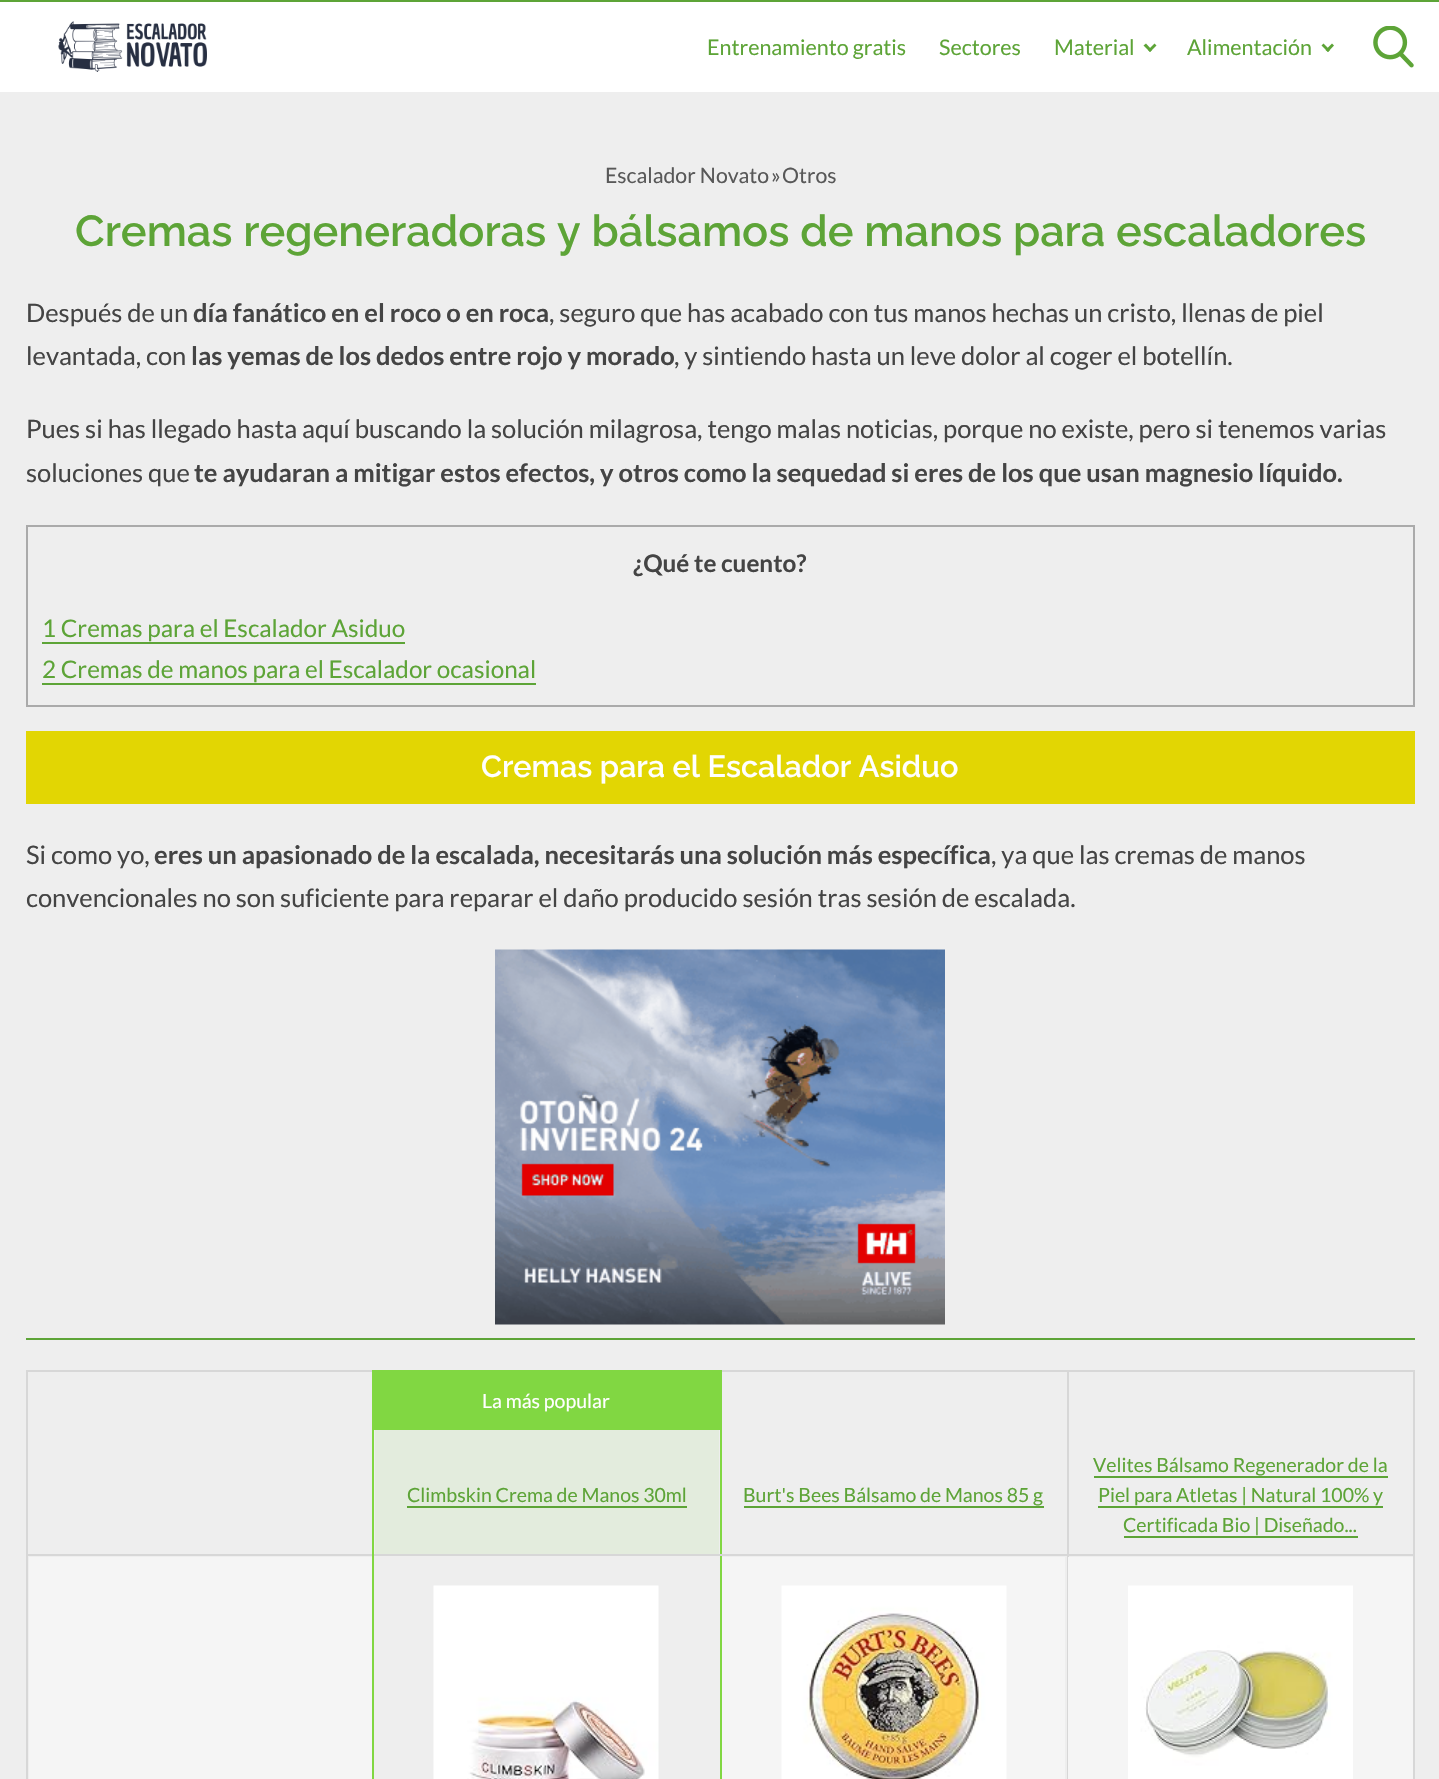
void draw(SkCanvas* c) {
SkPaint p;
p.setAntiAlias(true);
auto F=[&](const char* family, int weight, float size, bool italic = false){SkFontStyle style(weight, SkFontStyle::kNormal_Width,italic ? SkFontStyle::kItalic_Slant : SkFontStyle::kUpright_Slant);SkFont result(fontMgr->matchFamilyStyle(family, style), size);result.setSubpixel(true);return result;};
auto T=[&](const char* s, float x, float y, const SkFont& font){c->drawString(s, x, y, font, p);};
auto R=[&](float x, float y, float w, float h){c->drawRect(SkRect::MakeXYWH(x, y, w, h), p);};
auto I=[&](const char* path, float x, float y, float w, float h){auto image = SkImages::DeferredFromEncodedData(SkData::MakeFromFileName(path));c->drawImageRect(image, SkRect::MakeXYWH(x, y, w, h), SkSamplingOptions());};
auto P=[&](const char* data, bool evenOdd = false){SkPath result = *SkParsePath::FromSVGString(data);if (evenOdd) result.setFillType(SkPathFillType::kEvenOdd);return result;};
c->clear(0xffeeeeee);
p.setColor(0xffffffff);
R(0,2,1439,90);
p.setColor(0xff5da437);
R(0,0,1439,2);
I("1.png",58,21,149,51);
auto f1 = F("Lato",400,21.5);
T("Entrenamiento gratis",707,55,f1);
T("Sectores",939,55,f1);
T("Material",1054,55,f1);
c->drawPath(P("M1154.5 43.5l2 2l-6.5 6.5l-2-2z"),p);
c->drawPath(P("M1146 43.5l6 6.5l-2 2l-6.5-6.5z"),p);
T("Alimentación",1187,55,f1);
c->drawPath(P("M1332 43.5l2 2l-6 6.5l-2.5-2z"),p);
c->drawPath(P("M1323.5 43.5l6.5 6.5l-2 2l-6.5-6.5z"),p);
I("2.png",1373,26,41,42);
auto f2 = F("Lato",400,21.25);
p.setColor(0xff585858);
T("Escalador Novato",605,183,f2);
T("»",771,183,f2);
T("Otros",782,183,f2);
auto f3 = F("Raleway",600,43.35);
p.setColor(0xff5da437);
T("Cremas regeneradoras y bálsamos de manos para escaladores",75,246,f3);
auto f4 = F("Lato",400,25.5);
p.setColor(0xff444444);
T("Después de un",26,322,f4);
auto f5 = F("Lato",700,25.5);
T("día fanático en el roco o en roca",193,322,f5);
T(", seguro que has acabado con tus manos hechas un cristo, llenas de piel",549,322,f4);
T("levantada, con",26,365,f4);
T("las yemas de los dedos entre rojo y morado",191,365,f5);
T(", y sintiendo hasta un leve dolor al coger el botellín.",674,365,f4);
T("Pues si has llegado hasta aquí buscando la solución milagrosa, tengo malas noticias, porque no existe, pero si tenemos varias",26,438,f4);
T("soluciones que",26,482,f4);
T("te ayudaran a mitigar estos efectos, y otros como la sequedad si eres de los que usan magnesio líquido.",194,482,f5);
p.setStroke(true);
p.setStrokeWidth(2);
p.setColor(0xffaaaaaa);
c->drawRect(SkRect::MakeXYWH(27,526,1387,180),p);
auto f6 = F("Lato",700,24.25);
p.setStroke(false);
p.setColor(0xff444444);
T("¿Qué te cuento?",633,572,f6);
auto f7 = F("Lato",400,24.25);
p.setColor(0xff5da437);
T("1 Cremas para el Escalador Asiduo",42,637,f7);
R(42,642,363,2);
T("2 Cremas de manos para el Escalador ocasional",42,678,f7);
R(42,683,494,2);
p.setColor(0xffe2d603);
R(26,731,1389,73);
auto f8 = F("Raleway",600,30.6);
p.setColor(0xffffffff);
T("Cremas para el Escalador Asiduo",481,777,f8);
p.setColor(0xff444444);
T("Si como yo,",26,864,f4);
T("eres un apasionado de la escalada, necesitarás una solución más específica",154,864,f5);
T(", ya que las cremas de manos",991,864,f4);
T("convencionales no son suficiente para reparar el daño producido sesión tras sesión de escalada.",26,907,f4);
p.setColor(0xff5da437);
R(26,1338,1389,2);
I("3.png",495,949,450,376);
p.setColor(0xffd7d7d7);
R(26,1370,348,2);
R(26,1554,348,2);
R(26,1554,2,225);
R(26,1370,2,186);
R(1067,1370,348,2);
R(1067,1554,348,2);
R(1067,1554,2,225);
R(1067,1370,2,186);
R(720,1370,348,2);
p.setColor(0xff81d742);
R(720,1554,2,225);
p.setColor(0xffd7d7d7);
R(720,1554,348,2);
p.setColor(0xff81d742);
R(720,1370,2,186);
p.setColor(0xffd7d7d7);
R(372,1554,350,2);
p.setColor(0xffe3ecdd);
R(375,1430,344,124);
p.setColor(0xff81d742);
R(372,1370,2,409);
R(374,1370,346,60);
auto f9 = F("Lato",400,19.5);
p.setColor(0xffffffff);
T("La más popular",482,1408,f9);
p.setColor(0xff5da437);
T("Climbskin Crema de Manos 30ml",407,1502,f9);
R(407,1506,280,2);
T("Burt's Bees Bálsamo de Manos 85 g",743,1502,f9);
R(744,1506,300,2);
p.setColor(0xffd7d7d7);
R(1413,1554,2,225);
R(1413,1370,2,186);
p.setColor(0xff5da437);
T("Velites Bálsamo Regenerador de la",1093,1472,f9);
R(1094,1476,294,2);
T("Piel para Atletas | Natural 100% y",1098,1502,f9);
R(1098,1506,285,2);
T("Certificada Bio | Diseñado...",1123,1532,f9);
R(1124,1536,234,2);
p.setColor(0xfff5f5f5);
R(29,1557,343,222);
I("4.png",433,1585,226,194);
R(722,1557,343,222);
I("5.png",781,1585,226,194);
R(1068,1557,345,222);
I("6.png",1128,1585,225,194);
}
